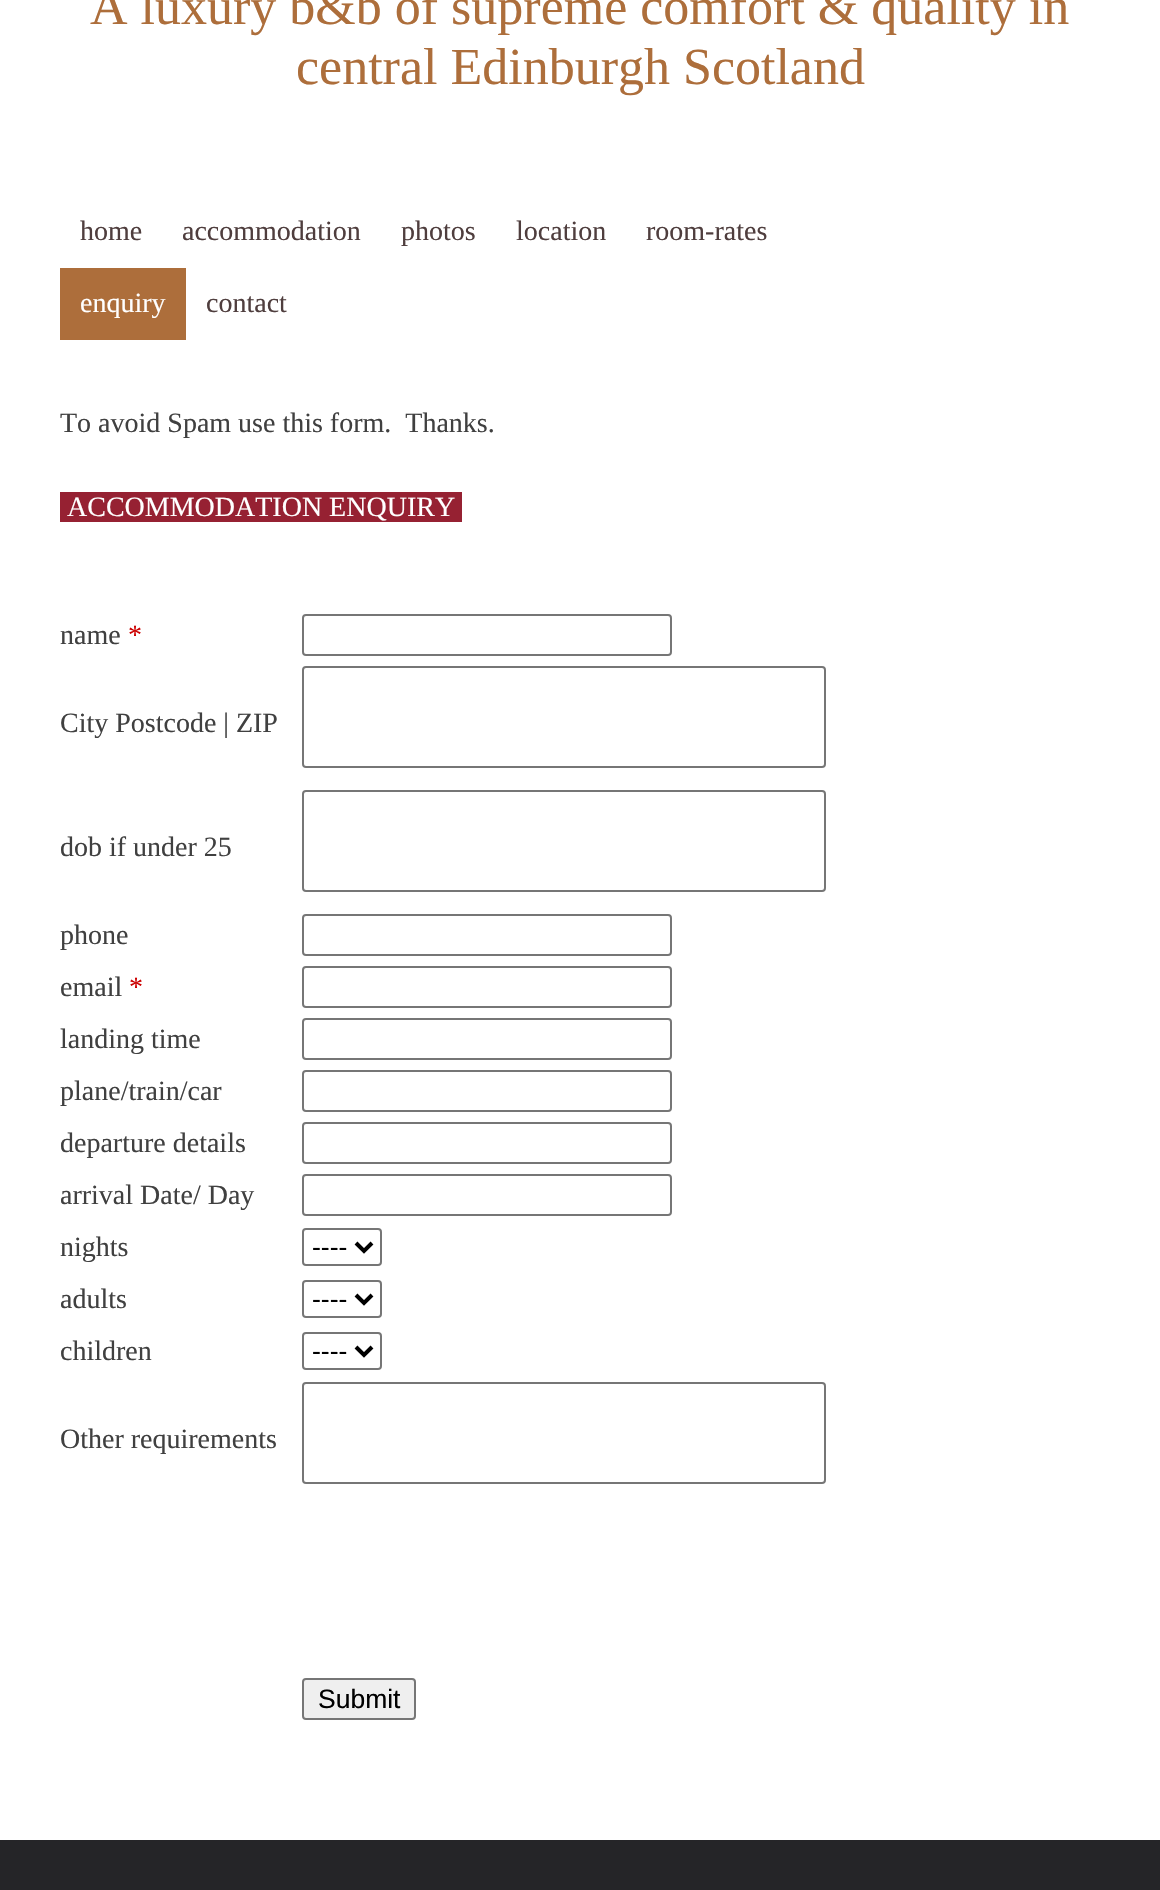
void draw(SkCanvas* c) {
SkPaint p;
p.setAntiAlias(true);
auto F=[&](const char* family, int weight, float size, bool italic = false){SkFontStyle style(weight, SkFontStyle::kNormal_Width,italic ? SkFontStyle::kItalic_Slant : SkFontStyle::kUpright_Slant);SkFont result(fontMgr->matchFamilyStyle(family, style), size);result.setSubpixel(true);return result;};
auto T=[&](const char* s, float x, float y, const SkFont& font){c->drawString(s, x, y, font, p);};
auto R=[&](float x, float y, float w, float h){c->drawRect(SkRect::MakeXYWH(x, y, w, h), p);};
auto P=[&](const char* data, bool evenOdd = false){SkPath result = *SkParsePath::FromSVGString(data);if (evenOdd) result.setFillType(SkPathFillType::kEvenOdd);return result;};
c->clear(0xffffffff);
auto f1 = F("Liberation Serif",400,52);
p.setColor(0xffad6e3b);
T("A luxury b&b of supreme comfort & quality in",90,24,f1);
T("central Edinburgh Scotland",296,84,f1);
auto f2 = F("Liberation Serif",400,28);
p.setColor(0xff4f3e3e);
T("home",80,240,f2);
T("accommodation",182,240,f2);
T("photos",401,240,f2);
T("location",516,240,f2);
T("room-rates",646,240,f2);
p.setColor(0xffad6e3b);
R(60,268,126,72);
p.setColor(0xffffffff);
T("enquiry",80,312,f2);
p.setColor(0xff4f3e3e);
T("contact",206,312,f2);
p.setColor(0xff404040);
T("To avoid Spam use this form.  Thanks.",60,432,f2);
p.setColor(0xff962132);
R(60,492,402,30);
p.setColor(0xffffffff);
T("ACCOMMODATION ENQUIRY",67,516,f2);
p.setColor(0xff404040);
T("name",60,644,f2);
p.setColor(0xffcc0000);
T("*",128,644,f2);
p.setStroke(true);
p.setStrokeWidth(2);
p.setColor(0xff767676);
c->drawRoundRect(SkRect::MakeXYWH(303,615,368,40),3,3,p);
p.setStroke(false);
p.setColor(0xff404040);
T("City Postcode | ZIP",60,732,f2);
p.setStroke(true);
p.setColor(0xff767676);
c->drawRoundRect(SkRect::MakeXYWH(303,667,522,100),3,3,p);
p.setStroke(false);
p.setColor(0xff404040);
T("dob if under 25",60,856,f2);
p.setStroke(true);
p.setColor(0xff767676);
c->drawRoundRect(SkRect::MakeXYWH(303,791,522,100),3,3,p);
p.setStroke(false);
p.setColor(0xff404040);
T("phone",60,944,f2);
p.setStroke(true);
p.setColor(0xff767676);
c->drawRoundRect(SkRect::MakeXYWH(303,915,368,40),3,3,p);
p.setStroke(false);
p.setColor(0xff404040);
T("email",60,996,f2);
p.setColor(0xffcc0000);
T("*",129,996,f2);
p.setStroke(true);
p.setColor(0xff767676);
c->drawRoundRect(SkRect::MakeXYWH(303,967,368,40),3,3,p);
p.setStroke(false);
p.setColor(0xff404040);
T("landing time",60,1048,f2);
p.setStroke(true);
p.setColor(0xff767676);
c->drawRoundRect(SkRect::MakeXYWH(303,1019,368,40),3,3,p);
p.setStroke(false);
p.setColor(0xff404040);
T("plane/train/car",60,1100,f2);
p.setStroke(true);
p.setColor(0xff767676);
c->drawRoundRect(SkRect::MakeXYWH(303,1071,368,40),3,3,p);
p.setStroke(false);
p.setColor(0xff404040);
T("departure details",60,1152,f2);
p.setStroke(true);
p.setColor(0xff767676);
c->drawRoundRect(SkRect::MakeXYWH(303,1123,368,40),3,3,p);
p.setStroke(false);
p.setColor(0xff404040);
T("arrival Date/ Day",60,1204,f2);
p.setStroke(true);
p.setColor(0xff767676);
c->drawRoundRect(SkRect::MakeXYWH(303,1175,368,40),3,3,p);
p.setStroke(false);
p.setColor(0xff404040);
T("nights",60,1256,f2);
p.setStroke(true);
p.setColor(0xff767676);
c->drawRoundRect(SkRect::MakeXYWH(303,1229,78,36),3,3,p);
p.setStrokeWidth(4);
p.setColor(0xff000000);
c->drawPath(P("M356 1243l8 8l8-8"),p);
auto f3 = F("Liberation Sans",400,26.5);
p.setStroke(false);
T("----",312,1256,f3);
p.setColor(0xff404040);
T("adults",60,1308,f2);
p.setStroke(true);
p.setStrokeWidth(2);
p.setColor(0xff767676);
c->drawRoundRect(SkRect::MakeXYWH(303,1281,78,36),3,3,p);
p.setStrokeWidth(4);
p.setColor(0xff000000);
c->drawPath(P("M356 1295l8 8l8-8"),p);
p.setStroke(false);
T("----",312,1308,f3);
p.setColor(0xff404040);
T("children",60,1360,f2);
p.setStroke(true);
p.setStrokeWidth(2);
p.setColor(0xff767676);
c->drawRoundRect(SkRect::MakeXYWH(303,1333,78,36),3,3,p);
p.setStrokeWidth(4);
p.setColor(0xff000000);
c->drawPath(P("M356 1347l8 8l8-8"),p);
p.setStroke(false);
T("----",312,1360,f3);
p.setColor(0xff404040);
T("Other requirements",60,1448,f2);
p.setStroke(true);
p.setStrokeWidth(2);
p.setColor(0xff767676);
c->drawRoundRect(SkRect::MakeXYWH(303,1383,522,100),3,3,p);
p.setStroke(false);
p.setColor(0xffefefef);
c->drawRoundRect(SkRect::MakeXYWH(303,1679,112,40),3,3,p);
p.setStroke(true);
p.setColor(0xff767676);
c->drawRoundRect(SkRect::MakeXYWH(303,1679,112,40),3,3,p);
p.setStroke(false);
p.setColor(0xff000000);
T("Submit",318,1708,f3);
p.setColor(0xff252528);
R(0,1840,1160,50);
}
